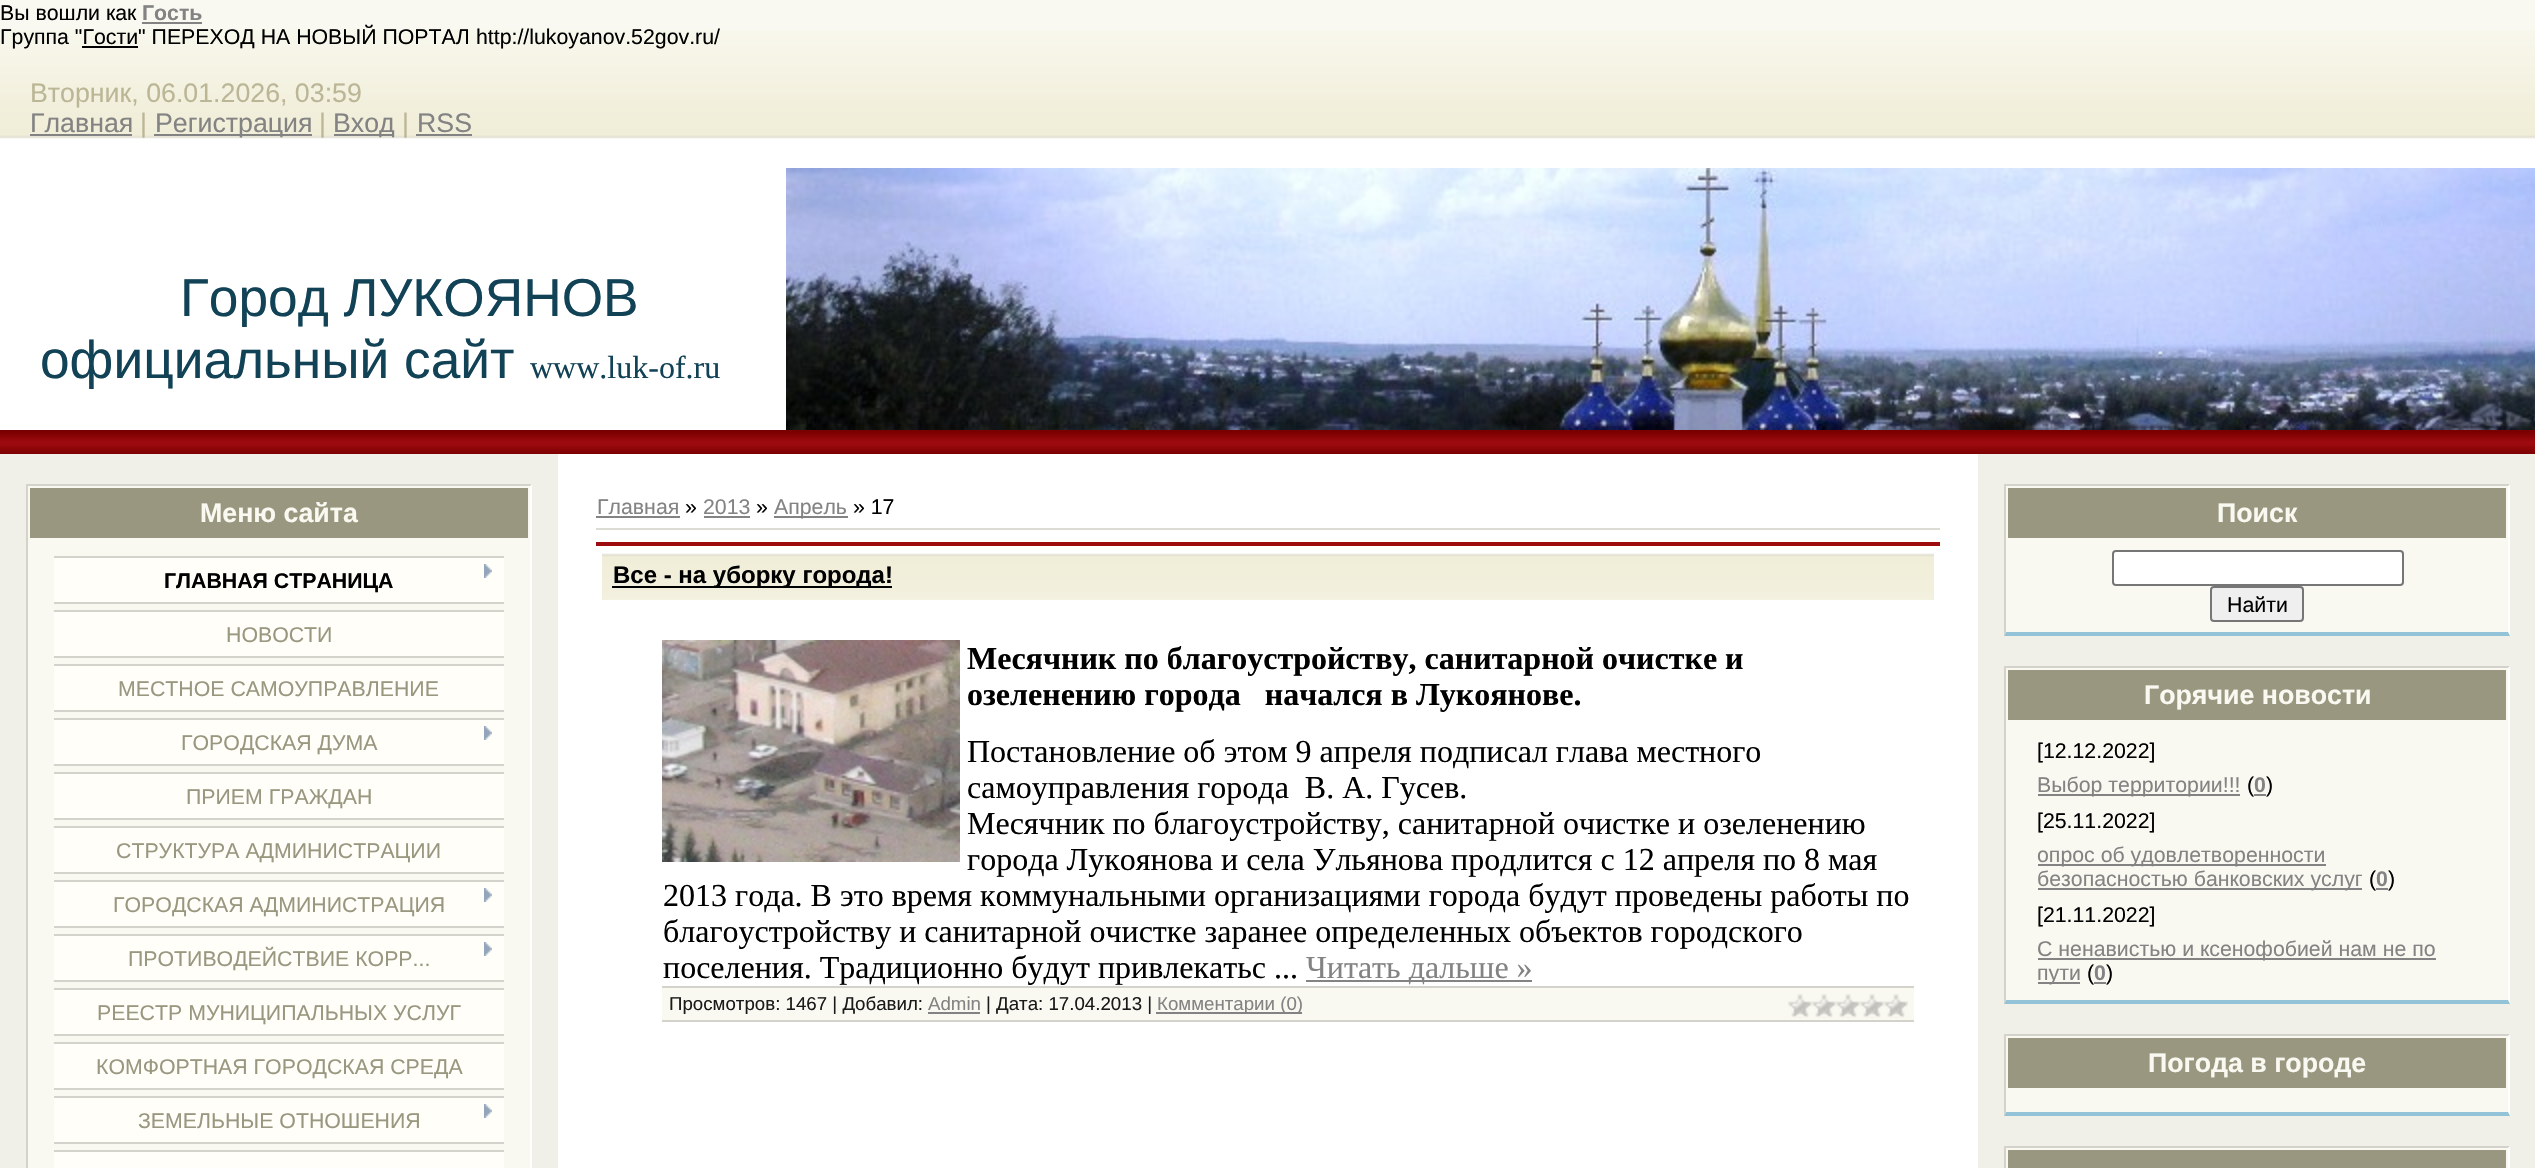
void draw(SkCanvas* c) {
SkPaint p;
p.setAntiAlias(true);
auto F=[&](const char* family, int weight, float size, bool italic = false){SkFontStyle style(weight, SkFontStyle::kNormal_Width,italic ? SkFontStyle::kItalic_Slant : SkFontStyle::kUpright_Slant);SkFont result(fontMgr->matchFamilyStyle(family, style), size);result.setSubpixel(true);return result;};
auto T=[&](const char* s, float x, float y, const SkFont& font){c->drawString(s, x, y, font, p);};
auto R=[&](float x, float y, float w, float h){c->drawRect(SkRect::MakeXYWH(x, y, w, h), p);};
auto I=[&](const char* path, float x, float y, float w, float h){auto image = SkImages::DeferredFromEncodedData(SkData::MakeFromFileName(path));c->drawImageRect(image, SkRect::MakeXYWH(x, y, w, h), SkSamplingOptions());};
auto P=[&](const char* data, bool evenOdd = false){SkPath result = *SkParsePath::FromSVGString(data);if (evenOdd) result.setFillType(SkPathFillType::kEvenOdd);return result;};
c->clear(0xffffffff);
p.setColor(0xfffaf9f1);
R(0,0,2535,30);
I("1.png",0,30,2535,110);
auto f1 = F("Liberation Sans",400,21.3);
p.setColor(0xff000000);
T("Вы вошли как",0,20,f1);
auto f2 = F("Liberation Sans",700,21.3);
p.setColor(0xff838383);
T("Гость",142,20,f2);
R(142,22,60,2);
p.setColor(0xff000000);
T("Группа \"Гости\" ПЕРЕХОД НА НОВЫЙ ПОРТАЛ",0,44,f1);
T("http://lukoyanov.52gov.ru/",476,44,f1);
R(82,46,56,2);
auto f3 = F("Liberation Sans",400,26.75);
p.setColor(0xffbbb696);
T("Вторник, 06.01.2026, 03:59",30,102,f3);
p.setColor(0xff838383);
T("Главная",30,132,f3);
R(30,134,102,2);
p.setColor(0xffbbb696);
T("|",140,132,f3);
p.setColor(0xff838383);
R(154,134,158,2);
T("Регистрация",155,132,f3);
p.setColor(0xffbbb696);
T("|",319,132,f3);
p.setColor(0xff838383);
R(334,134,60,2);
T("Вход",333,132,f3);
p.setColor(0xffbbb696);
T("|",402,132,f3);
p.setColor(0xff838383);
T("RSS",417,132,f3);
R(416,134,56,2);
auto f4 = F("Liberation Sans",400,53.25);
p.setColor(0xff124256);
T("Город ЛУКОЯНОВ",180,316,f4);
T("официальный сайт",40,378,f4);
auto f5 = F("Liberation Serif",400,32);
T("www.luk-of.ru",530,378,f5);
I("2.png",786,168,1749,262);
I("3.png",0,430,2535,24);
p.setColor(0xfff1f0e8);
R(0,454,558,714);
p.setColor(0xfffaf9f1);
R(28,540,502,628);
p.setColor(0xffd3d2cb);
R(26,484,506,2);
p.setColor(0xffffffff);
c->drawPath(P("M532 484v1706l-2-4v-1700z"),p);
p.setColor(0xffd3d2cb);
c->drawPath(P("M26 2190v-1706l2 2v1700z"),p);
p.setColor(0xff99977f);
c->drawRect(SkRect::MakeXYWH(29,487,500,52),p);
p.setStroke(true);
p.setStrokeWidth(2);
p.setColor(0xfffaf9f1);
c->drawRect(SkRect::MakeXYWH(29,487,500,52),p);
auto f6 = F("Liberation Sans",700,26.75);
p.setStroke(false);
T("Меню сайта",200,522,f6);
p.setColor(0xfffffef9);
R(54,558,450,44);
p.setColor(0xffd3d2cb);
R(54,556,450,2);
R(54,602,450,2);
I("4.png",484,564,8,14);
p.setColor(0xff000000);
T("ГЛАВНАЯ СТРАНИЦА",164,588,f2);
p.setColor(0xfffffef9);
R(54,612,450,44);
p.setColor(0xffd3d2cb);
R(54,610,450,2);
R(54,656,450,2);
p.setColor(0xff99977f);
T("НОВОСТИ",226,642,f1);
p.setColor(0xfffffef9);
R(54,666,450,44);
p.setColor(0xffd3d2cb);
R(54,664,450,2);
R(54,710,450,2);
p.setColor(0xff99977f);
T("МЕСТНОЕ САМОУПРАВЛЕНИЕ",118,696,f1);
p.setColor(0xfffffef9);
R(54,720,450,44);
p.setColor(0xffd3d2cb);
R(54,718,450,2);
R(54,764,450,2);
I("4.png",484,726,8,14);
p.setColor(0xff99977f);
T("ГОРОДСКАЯ ДУМА",181,750,f1);
p.setColor(0xfffffef9);
R(54,774,450,44);
p.setColor(0xffd3d2cb);
R(54,772,450,2);
R(54,818,450,2);
p.setColor(0xff99977f);
T("ПРИЕМ ГРАЖДАН",186,804,f1);
p.setColor(0xfffffef9);
R(54,828,450,44);
p.setColor(0xffd3d2cb);
R(54,826,450,2);
R(54,872,450,2);
p.setColor(0xff99977f);
T("СТРУКТУРА АДМИНИСТРАЦИИ",116,858,f1);
p.setColor(0xfffffef9);
R(54,882,450,44);
p.setColor(0xffd3d2cb);
R(54,880,450,2);
R(54,926,450,2);
I("4.png",484,888,8,14);
p.setColor(0xff99977f);
T("ГОРОДСКАЯ АДМИНИСТРАЦИЯ",113,912,f1);
p.setColor(0xfffffef9);
R(54,936,450,44);
p.setColor(0xffd3d2cb);
R(54,934,450,2);
R(54,980,450,2);
p.setColor(0xff99977f);
T("ПРОТИВОДЕЙСТВИЕ КОРР...",128,966,f1);
I("4.png",484,942,8,14);
p.setColor(0xfffffef9);
R(54,990,450,44);
p.setColor(0xffd3d2cb);
R(54,988,450,2);
R(54,1034,450,2);
p.setColor(0xff99977f);
T("РЕЕСТР МУНИЦИПАЛЬНЫХ УСЛУГ",97,1020,f1);
p.setColor(0xfffffef9);
R(54,1044,450,44);
p.setColor(0xffd3d2cb);
R(54,1042,450,2);
R(54,1088,450,2);
p.setColor(0xff99977f);
T("КОМФОРТНАЯ ГОРОДСКАЯ СРЕДА",96,1074,f1);
p.setColor(0xfffffef9);
R(54,1098,450,44);
p.setColor(0xffd3d2cb);
R(54,1096,450,2);
R(54,1142,450,2);
I("4.png",484,1104,8,14);
p.setColor(0xff99977f);
T("ЗЕМЕЛЬНЫЕ ОТНОШЕНИЯ",138,1128,f1);
p.setColor(0xfffffef9);
R(54,1152,450,16);
p.setColor(0xffd3d2cb);
R(54,1150,450,2);
p.setColor(0xff838383);
T("Главная",597,514,f1);
R(596,516,84,2);
p.setColor(0xff000000);
T("»",685,514,f1);
p.setColor(0xff838383);
T("2013",703,514,f1);
R(704,516,46,2);
p.setColor(0xff000000);
T("»",756,514,f1);
p.setColor(0xff838383);
R(774,516,74,2);
T("Апрель",774,514,f1);
p.setColor(0xff000000);
T("» 17",853,514,f1);
p.setColor(0xffdcdbd4);
R(596,528,1344,2);
p.setColor(0xff9e0b0f);
R(596,542,1344,4);
I("5.png",602,552,1332,48);
p.setColor(0xff000000);
R(612,586,280,2);
auto f7 = F("Liberation Sans",700,24);
T("Все - на уборку города!",613,583,f7);
I("6.png",662,640,298,222);
auto f8 = F("Liberation Serif",700,32);
T("Месячник по благоустройству, санитарной очистке и",967,669,f8);
T("озеленению города   начался в Лукоянове.",967,705,f8);
T("Постановление об этом 9 апреля подписал глава местного",967,762,f5);
T("самоуправления города  В. А. Гусев.",967,798,f5);
T("Месячник по благоустройству, санитарной очистке и озеленению",967,834,f5);
T("города Лукоянова и села Ульянова продлится с 12 апреля по 8 мая",967,870,f5);
T("2013 года. В это время коммунальными организациями города будут проведены работы по",663,906,f5);
T("благоустройству и санитарной очистке заранее определенных объектов городского",663,942,f5);
T("поселения. Традиционно будут привлекатьс ...",663,978,f5);
p.setColor(0xff838383);
R(1306,980,226,2);
T("Читать дальше »",1306,978,f5);
p.setColor(0xfffaf9f1);
R(662,988,1252,32);
p.setColor(0xffd3d2cb);
R(662,986,1252,2);
R(662,1020,1252,2);
auto f9 = F("Liberation Sans",400,18.7);
p.setColor(0xff1a1a1a);
T("Просмотров: 1467 | Добавил:",669,1010,f9);
p.setColor(0xff838383);
T("Admin",928,1010,f9);
R(928,1012,52,2);
p.setColor(0xff1a1a1a);
T("| Дата: 17.04.2013 |",986,1010,f9);
p.setColor(0xff838383);
R(1156,1012,146,2);
T("Комментарии (0)",1157,1010,f9);
I("7.png",1788,994,120,24);
p.setColor(0xfff1f0e8);
R(1978,454,557,714);
p.setColor(0xfffaf9f1);
R(2006,540,502,92);
p.setColor(0xffd3d2cb);
R(2004,484,506,2);
p.setColor(0xffffffff);
c->drawPath(P("M2510 484v152l-2-4v-146z"),p);
p.setColor(0xff93c3d7);
c->drawPath(P("M2510 636h-506l2-4h502z"),p);
p.setColor(0xffd3d2cb);
c->drawPath(P("M2004 636v-152l2 2v146z"),p);
p.setColor(0xff99977f);
c->drawRect(SkRect::MakeXYWH(2007,487,500,52),p);
p.setStroke(true);
p.setColor(0xfffaf9f1);
c->drawRect(SkRect::MakeXYWH(2007,487,500,52),p);
p.setStroke(false);
T("Поиск",2217,522,f6);
p.setColor(0xffffffff);
c->drawRoundRect(SkRect::MakeXYWH(2113,551,290,34),3,3,p);
p.setStroke(true);
p.setColor(0xff767676);
c->drawRoundRect(SkRect::MakeXYWH(2113,551,290,34),3,3,p);
p.setStroke(false);
p.setColor(0xffefefef);
c->drawRoundRect(SkRect::MakeXYWH(2211,587,92,34),3,3,p);
p.setStroke(true);
p.setColor(0xff767676);
c->drawRoundRect(SkRect::MakeXYWH(2211,587,92,34),3,3,p);
p.setStroke(false);
p.setColor(0xff000000);
T("Найти",2227,612,f1);
p.setColor(0xfffaf9f1);
R(2006,722,502,278);
p.setColor(0xffd3d2cb);
R(2004,666,506,2);
p.setColor(0xffffffff);
c->drawPath(P("M2510 666v338l-2-4v-332z"),p);
p.setColor(0xff93c3d7);
c->drawPath(P("M2510 1004h-506l2-4h502z"),p);
p.setColor(0xffd3d2cb);
c->drawPath(P("M2004 1004v-338l2 2v332z"),p);
p.setColor(0xff99977f);
c->drawRect(SkRect::MakeXYWH(2007,669,500,52),p);
p.setStroke(true);
p.setColor(0xfffaf9f1);
c->drawRect(SkRect::MakeXYWH(2007,669,500,52),p);
p.setStroke(false);
T("Горячие новости",2144,704,f6);
p.setColor(0xff000000);
T("[12.12.2022]",2037,758,f1);
p.setColor(0xff838383);
R(2038,794,202,2);
T("Выбор территории!!!",2037,792,f1);
p.setColor(0xff000000);
T("(",2247,792,f1);
p.setColor(0xff838383);
R(2254,794,12,2);
T("0",2254,792,f2);
p.setColor(0xff000000);
T(")",2266,792,f1);
T("[25.11.2022]",2037,828,f1);
p.setColor(0xff838383);
R(2038,864,288,2);
T("опрос об удовлетворенности",2037,862,f1);
R(2038,888,324,2);
T("безопасностью банковских услуг",2037,886,f1);
p.setColor(0xff000000);
T("(",2369,886,f1);
p.setColor(0xff838383);
R(2376,888,12,2);
T("0",2376,886,f2);
p.setColor(0xff000000);
T(")",2388,886,f1);
T("[21.11.2022]",2037,922,f1);
p.setColor(0xff838383);
R(2038,958,398,2);
T("С ненавистью и ксенофобией нам не по",2037,956,f1);
R(2038,982,42,2);
T("пути",2037,980,f1);
p.setColor(0xff000000);
T("(",2087,980,f1);
p.setColor(0xff838383);
R(2094,982,12,2);
T("0",2094,980,f2);
p.setColor(0xff000000);
T(")",2106,980,f1);
p.setColor(0xfffaf9f1);
R(2006,1090,502,22);
p.setColor(0xffd3d2cb);
R(2004,1034,506,2);
p.setColor(0xffffffff);
c->drawPath(P("M2510 1034v82l-2-4v-76z"),p);
p.setColor(0xff93c3d7);
c->drawPath(P("M2510 1116h-506l2-4h502z"),p);
p.setColor(0xffd3d2cb);
c->drawPath(P("M2004 1116v-82l2 2v76z"),p);
p.setColor(0xff99977f);
c->drawRect(SkRect::MakeXYWH(2007,1037,500,52),p);
p.setStroke(true);
p.setColor(0xfffaf9f1);
c->drawRect(SkRect::MakeXYWH(2007,1037,500,52),p);
p.setStroke(false);
T("Погода в городе",2148,1072,f6);
p.setColor(0xffd3d2cb);
R(2004,1146,506,2);
p.setColor(0xffffffff);
c->drawPath(P("M2510 1146v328l-2-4v-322z"),p);
p.setColor(0xffd3d2cb);
c->drawPath(P("M2004 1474v-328l2 2v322z"),p);
p.setColor(0xff99977f);
c->drawRect(SkRect::MakeXYWH(2007,1149,500,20),p);
p.setStroke(true);
p.setColor(0xfffaf9f1);
c->drawRect(SkRect::MakeXYWH(2007,1149,500,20),p);
}
